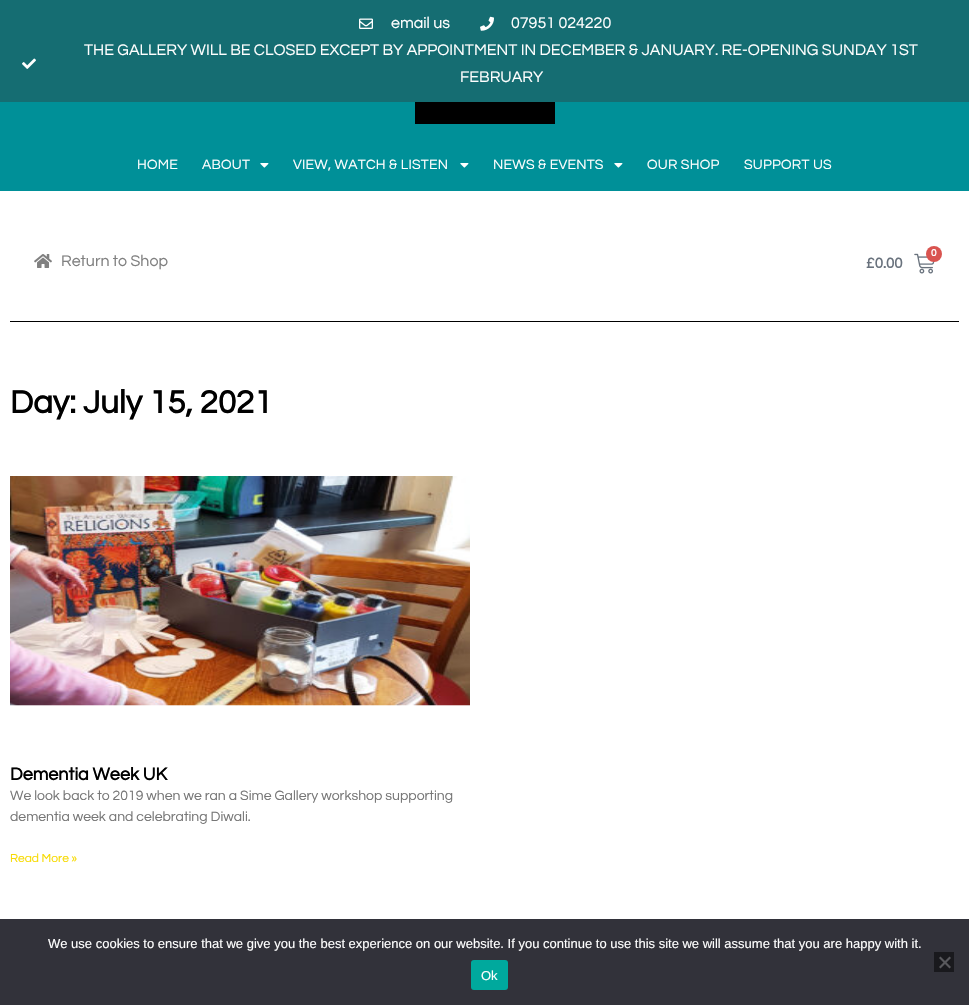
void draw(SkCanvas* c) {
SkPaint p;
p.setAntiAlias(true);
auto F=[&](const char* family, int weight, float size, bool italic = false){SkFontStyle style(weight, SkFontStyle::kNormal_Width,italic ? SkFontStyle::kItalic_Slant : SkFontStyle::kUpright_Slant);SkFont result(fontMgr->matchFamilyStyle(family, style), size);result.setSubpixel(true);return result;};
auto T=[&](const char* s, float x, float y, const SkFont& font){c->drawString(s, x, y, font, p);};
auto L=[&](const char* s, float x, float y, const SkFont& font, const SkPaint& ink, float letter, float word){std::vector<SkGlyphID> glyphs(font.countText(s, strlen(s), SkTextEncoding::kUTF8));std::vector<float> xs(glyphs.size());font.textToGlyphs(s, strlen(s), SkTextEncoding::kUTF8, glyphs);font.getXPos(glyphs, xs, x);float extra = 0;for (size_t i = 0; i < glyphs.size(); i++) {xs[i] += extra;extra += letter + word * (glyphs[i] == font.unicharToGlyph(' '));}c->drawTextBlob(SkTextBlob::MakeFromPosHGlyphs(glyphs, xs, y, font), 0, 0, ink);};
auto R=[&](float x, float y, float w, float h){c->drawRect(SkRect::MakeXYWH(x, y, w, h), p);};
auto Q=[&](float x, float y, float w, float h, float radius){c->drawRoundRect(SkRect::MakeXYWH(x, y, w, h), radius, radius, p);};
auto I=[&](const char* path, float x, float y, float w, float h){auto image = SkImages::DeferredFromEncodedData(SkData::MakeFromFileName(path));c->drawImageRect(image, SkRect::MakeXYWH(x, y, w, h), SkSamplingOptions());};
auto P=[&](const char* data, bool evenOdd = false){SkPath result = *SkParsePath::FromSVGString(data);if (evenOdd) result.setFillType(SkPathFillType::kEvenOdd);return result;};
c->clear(0xffffffff);
p.setColor(0xff156d72);
R(0,0,969,102);
I("1.png",359,18,14,11);
auto f1 = F("Questrial",400,16);
p.setColor(0xffffffff);
T("email us",391,28,f1);
I("2.png",480,16,14,15);
T("07951 024220",511,28,f1);
I("3.png",22,58,14,11);
T("THE GALLERY WILL BE CLOSED EXCEPT BY APPOINTMENT IN DECEMBER & JANUARY. RE-OPENING SUNDAY 1ST",84,55,f1);
T("FEBRUARY",460,82,f1);
p.setColor(0xff009098);
R(0,102,969,89);
p.setColor(0xff000000);
R(415,102,140,22);
auto f2 = F("Questrial",400,14);
p.setColor(0xffffffff);
L("HOME",137,169,f2,p,.25,0);
L("ABOUT",202,169,f2,p,.25,0);
I("4.png",260,163,9,5);
L("VIEW, WATCH & LISTEN",293,169,f2,p,.25,0);
I("4.png",460,163,9,5);
L("NEWS & EVENTS",493,169,f2,p,.25,0);
I("4.png",614,163,9,5);
L("OUR SHOP",647,169,f2,p,.25,0);
L("SUPPORT US",744,169,f2,p,.25,0);
I("5.png",34,254,18,14);
p.setColor(0xff808080);
T("Return to Shop",61,266,f1);
I("6.png",914,253,21,21);
p.setColor(0xffd9534f);
c->drawCircle(934,254,8,p);
auto f3 = F("Questrial",700,10);
p.setColor(0xffffffff);
T("0",931,256,f3);
auto f4 = F("Questrial",700,15);
p.setColor(0xff69727d);
T("£0.00",866,268,f4);
p.setColor(0xff000000);
R(10,321,949,1);
auto f5 = F("Questrial",700,33);
T("Day: July 15, 2021",10,413,f5);
I("7.png",10,476,460,230);
auto f6 = F("Questrial",700,18);
T("Dementia Week UK",10,780,f6);
p.setColor(0xff777777);
T("We look back to 2019 when we ran a Sime Gallery workshop supporting",10,800,f2);
T("dementia week and celebrating Diwali.",10,821,f2);
auto f7 = F("Questrial",400,12);
p.setColor(0xfff7da00);
T("Read More »",10,862,f7);
p.setColor(0xff32323a);
R(0,919,969,86);
auto f8 = F("Liberation Sans",400,13);
p.setColor(0xffffffff);
T("We use cookies to ensure that we give you the best experience on our website. If you continue to use this site we will assume that you are happy with it.",48,948,f8);
p.setColor(0xff19191d);
R(934,952,20,20);
p.setColor(0xff59595d);
c->drawPath(P("M949.5 956.5l1.5 1.5l-10.5 10.5l-1.5-1.5z"),p);
c->drawPath(P("M939 958l1.5-1.5l10.5 10.5l-1.5 1.5z"),p);
p.setColor(0xff00a99d);
Q(471,960,37,30,3);
p.setColor(0xffffffff);
T("Ok",481,980,f8);
}
